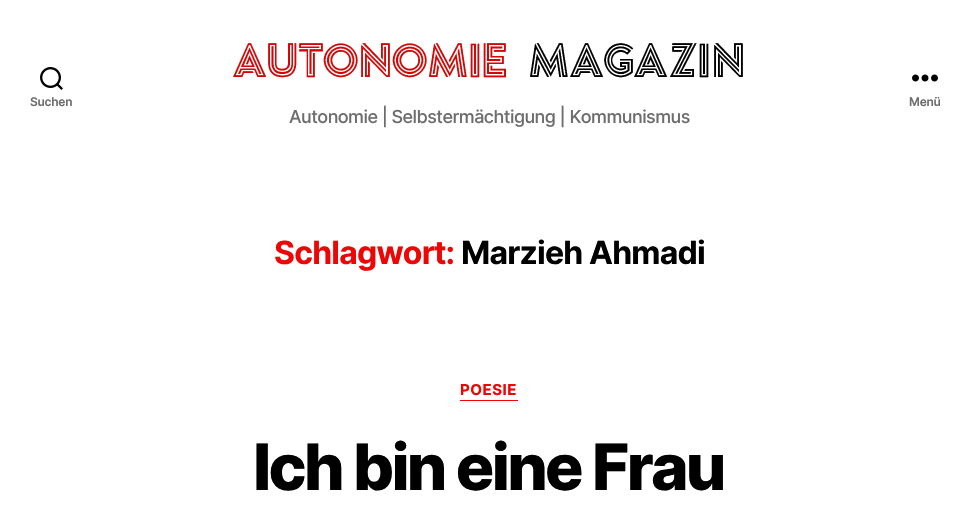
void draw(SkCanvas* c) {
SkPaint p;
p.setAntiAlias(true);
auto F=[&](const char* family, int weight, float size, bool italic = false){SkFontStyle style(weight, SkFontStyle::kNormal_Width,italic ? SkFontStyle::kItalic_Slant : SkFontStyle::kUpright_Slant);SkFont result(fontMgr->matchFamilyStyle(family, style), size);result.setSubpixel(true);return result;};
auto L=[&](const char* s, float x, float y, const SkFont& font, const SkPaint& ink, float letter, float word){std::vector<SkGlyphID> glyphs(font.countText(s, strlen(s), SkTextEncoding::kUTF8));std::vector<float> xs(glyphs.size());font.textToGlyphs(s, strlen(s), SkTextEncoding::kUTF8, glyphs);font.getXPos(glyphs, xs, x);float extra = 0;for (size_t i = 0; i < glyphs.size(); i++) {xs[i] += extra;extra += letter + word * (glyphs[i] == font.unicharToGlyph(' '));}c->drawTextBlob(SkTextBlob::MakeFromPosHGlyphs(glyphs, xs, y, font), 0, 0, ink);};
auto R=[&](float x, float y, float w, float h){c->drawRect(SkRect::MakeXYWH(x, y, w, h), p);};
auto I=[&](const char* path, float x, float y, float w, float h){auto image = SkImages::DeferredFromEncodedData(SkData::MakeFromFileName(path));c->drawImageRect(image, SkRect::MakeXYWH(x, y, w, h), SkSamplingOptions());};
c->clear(0xffffffff);
I("1.png",40,67,23,23);
auto f1 = F("Inter",600,12);
p.setColor(0xff6d6d6d);
L("Suchen",30,106,f1,p,-.25,0);
I("2.png",912,74,26,8);
L("Menü",909,106,f1,p,-.25,0);
I("3.png",233,43,510,35);
auto f2 = F("Inter",500,18);
L("Autonomie | Selbstermächtigung | Kommunismus",289,123,f2,p,-.55,0);
auto f3 = F("Inter",700,32);
p.setColor(0xffee0606);
L("Schlagwort:",274,264,f3,p,-.8,0);
p.setColor(0xff000000);
L("Marzieh Ahmadi",461,264,f3,p,-.8,0);
p.setColor(0xffee0606);
R(460,400,58,1);
auto f4 = F("Inter",700,15);
L("POESIE",460,395,f4,p,.5,0);
auto f5 = F("Inter",800,64);
p.setColor(0xff000000);
L("Ich bin eine Frau",253,490,f5,p,-2.7,0);
}
